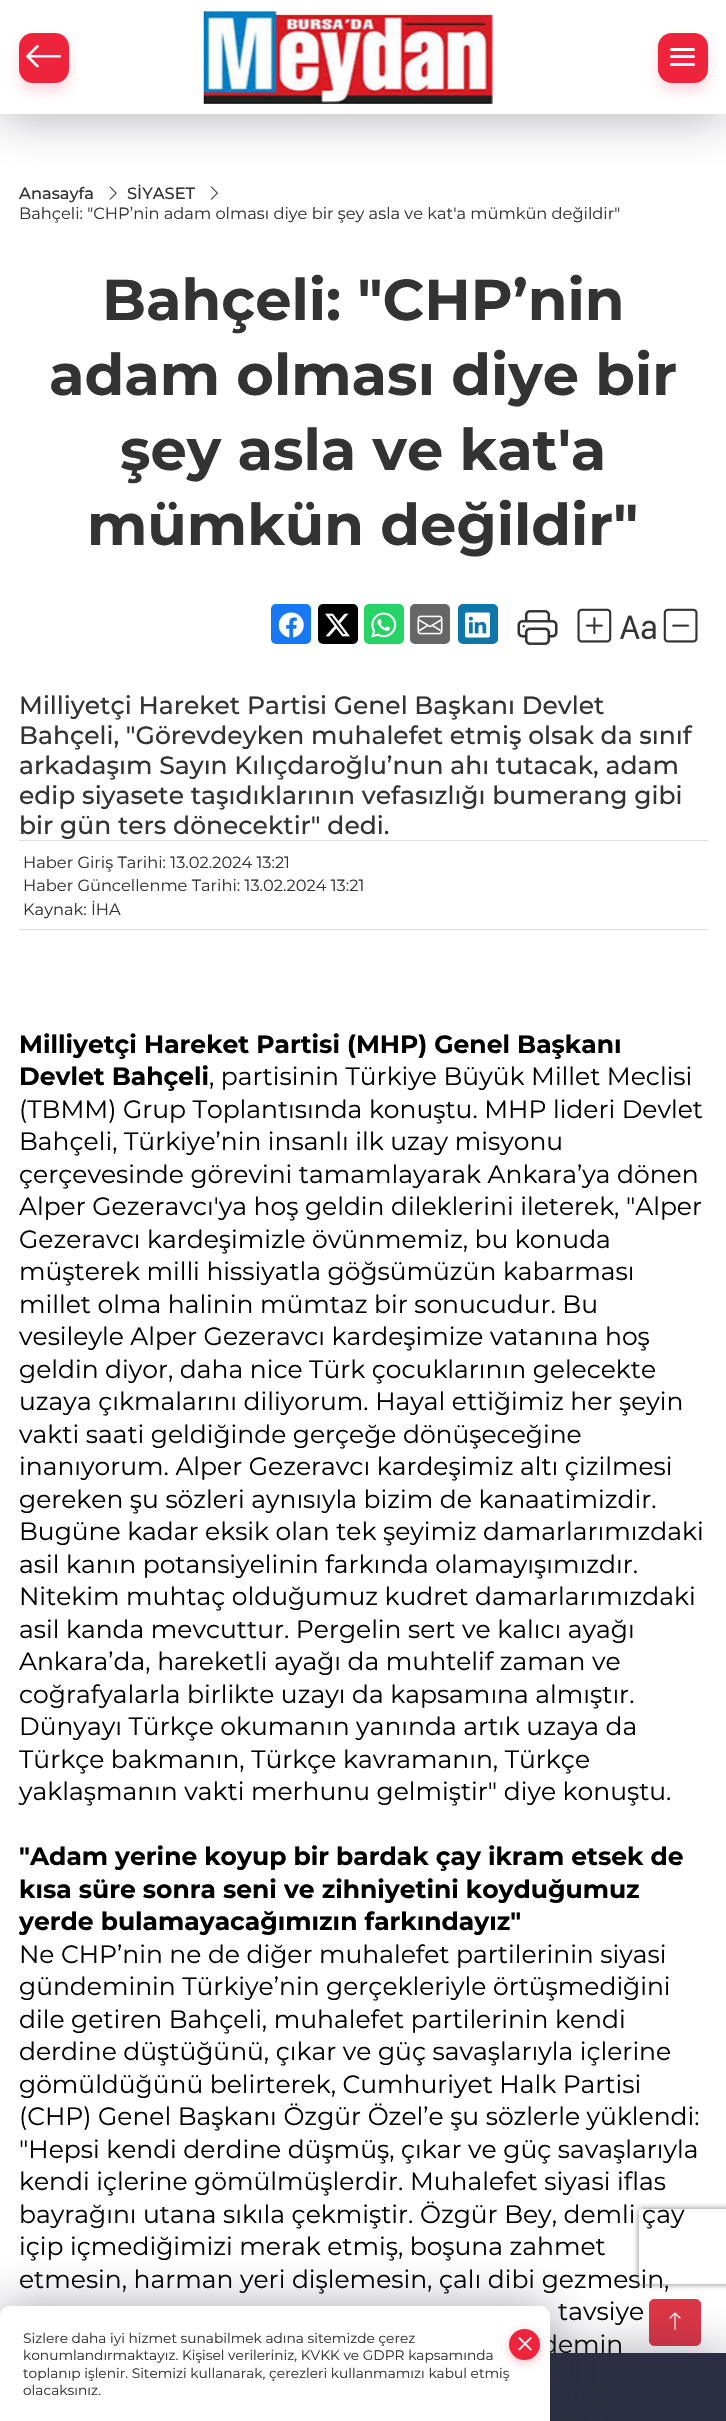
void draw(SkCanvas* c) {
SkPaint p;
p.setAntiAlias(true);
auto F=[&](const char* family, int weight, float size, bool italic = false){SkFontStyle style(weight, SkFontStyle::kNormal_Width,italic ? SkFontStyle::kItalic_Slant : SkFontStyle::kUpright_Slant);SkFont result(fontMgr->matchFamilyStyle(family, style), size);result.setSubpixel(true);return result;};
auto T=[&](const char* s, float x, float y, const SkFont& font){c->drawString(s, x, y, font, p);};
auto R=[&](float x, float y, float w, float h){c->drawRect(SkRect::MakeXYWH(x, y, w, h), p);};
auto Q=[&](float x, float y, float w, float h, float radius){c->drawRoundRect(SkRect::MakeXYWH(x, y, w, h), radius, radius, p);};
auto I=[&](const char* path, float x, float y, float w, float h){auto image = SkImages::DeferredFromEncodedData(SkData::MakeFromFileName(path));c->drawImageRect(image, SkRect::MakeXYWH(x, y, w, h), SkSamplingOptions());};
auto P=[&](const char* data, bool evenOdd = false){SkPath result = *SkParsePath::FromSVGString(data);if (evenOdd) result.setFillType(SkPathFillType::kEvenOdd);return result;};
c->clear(0xffffffff);
I("3.png",109,186,8,14);
I("4.png",210,186,8,14);
p.setColor(0x5c2b2d42);
p.setMaskFilter(SkMaskFilter::MakeBlur(kNormal_SkBlurStyle, 24));
c->drawRect(SkRect::MakeXYWH(0,4,726,114),p);
p.setMaskFilter(nullptr);
p.setColor(0xffffffff);
R(0,0,726,114);
p.setColor(0x2eef233c);
p.setMaskFilter(SkMaskFilter::MakeBlur(kNormal_SkBlurStyle, 7));
c->drawRoundRect(SkRect::MakeXYWH(19,41,50,50),14,14,p);
p.setMaskFilter(nullptr);
p.setColor(0xffef233c);
Q(19,33,50,50,14);
I("1.png",26,45,36,23);
I("2.png",203,11,290,93);
p.setColor(0x2eef233c);
p.setMaskFilter(SkMaskFilter::MakeBlur(kNormal_SkBlurStyle, 7));
c->drawRoundRect(SkRect::MakeXYWH(658,41,50,50),14,14,p);
p.setMaskFilter(nullptr);
p.setColor(0xffef233c);
Q(658,33,50,50,14);
p.setColor(0xffffffff);
Q(670,55,25,3,1.5);
Q(670,48,25,3,1.5);
Q(670,63,25,3,1.5);
auto f1 = F("Montserrat",500,16.25);
p.setColor(0xff333333);
T("Anasayfa",19,199,f1);
T("SİYASET",127,199,f1);
auto f2 = F("Montserrat",400,16.25);
T("Bahçeli: \"CHP’nin adam olması diye bir şey asla ve kat'a mümkün değildir\"",19,219,f2);
auto f3 = F("Montserrat",700,57.5);
T("Bahçeli: \"CHP’nin",102,320,f3);
T("adam olması diye bir",49,395,f3);
T("şey asla ve kat'a",120,470,f3);
T("mümkün değildir\"",87,545,f3);
p.setColor(0xff1877f2);
Q(271,604,40,40,5);
I("5.png",278,612,26,26);
p.setColor(0xff000000);
Q(318,604,40,40,5);
I("6.png",325,613,25,24);
p.setColor(0xff25d366);
Q(364,604,40,40,5);
I("7.png",371,612,26,26);
p.setColor(0xff666666);
Q(410,604,40,40,5);
I("8.png",417,615,26,20);
p.setColor(0xff0e76a8);
Q(458,604,40,40,5);
I("9.png",465,612,25,26);
I("10.png",517,610,41,35);
I("11.png",577,608,35,35);
I("12.png",620,615,36,25);
I("13.png",663,608,35,35);
auto f4 = F("Montserrat",500,25);
p.setColor(0xff333333);
T("Milliyetçi Hareket Partisi Genel Başkanı Devlet",19,714,f4);
T("Bahçeli, \"Görevdeyken muhalefet etmiş olsak da sınıf",19,744,f4);
T("arkadaşım Sayın Kılıçdaroğlu’nun ahı tutacak, adam",19,774,f4);
T("edip siyasete taşıdıklarının vefasızlığı bumerang gibi",19,804,f4);
T("bir gün ters dönecektir\" dedi.",19,834,f4);
p.setColor(0xffdddddd);
R(19,840,689,1);
R(19,929,689,1);
p.setColor(0xff333333);
T("Haber Giriş Tarihi: 13.02.2024 13:21",23,868,f2);
T("Haber Güncellenme Tarihi: 13.02.2024 13:21",23,891,f2);
T("Kaynak: İHA",23,915,f2);
auto f5 = F("Montserrat",700,25);
p.setColor(0xff000000);
T("Milliyetçi Hareket Partisi (MHP) Genel Başkanı",19,1053,f5);
T("Devlet Bahçeli",19,1085,f5);
auto f6 = F("Montserrat",400,25);
T(", partisinin Türkiye Büyük Millet Meclisi",209,1085,f6);
T("(TBMM) Grup Toplantısında konuştu. MHP lideri Devlet",19,1118,f6);
T("Bahçeli, Türkiye’nin insanlı ilk uzay misyonu",19,1150,f6);
T("çerçevesinde görevini tamamlayarak Ankara’ya dönen",19,1183,f6);
T("Alper Gezeravcı'ya hoş geldin dileklerini ileterek, \"Alper",19,1215,f6);
T("Gezeravcı kardeşimizle övünmemiz, bu konuda",19,1248,f6);
T("müşterek milli hissiyatla göğsümüzün kabarması",19,1280,f6);
T("millet olma halinin mümtaz bir sonucudur. Bu",19,1313,f6);
T("vesileyle Alper Gezeravcı kardeşimize vatanına hoş",19,1345,f6);
T("geldin diyor, daha nice Türk çocuklarının gelecekte",19,1378,f6);
T("uzaya çıkmalarını diliyorum. Hayal ettiğimiz her şeyin",19,1410,f6);
T("vakti saati geldiğinde gerçeğe dönüşeceğine",19,1443,f6);
T("inanıyorum. Alper Gezeravcı kardeşimiz altı çizilmesi",19,1475,f6);
T("gereken şu sözleri aynısıyla bizim de kanaatimizdir.",19,1508,f6);
T("Bugüne kadar eksik olan tek şeyimiz damarlarımızdaki",19,1540,f6);
T("asil kanın potansiyelinin farkında olamayışımızdır.",19,1573,f6);
T("Nitekim muhtaç olduğumuz kudret damarlarımızdaki",19,1605,f6);
T("asil kanda mevcuttur. Pergelin sert ve kalıcı ayağı",19,1638,f6);
T("Ankara’da, hareketli ayağı da muhtelif zaman ve",19,1670,f6);
T("coğrafyalarla birlikte uzayı da kapsamına almıştır.",19,1703,f6);
T("Dünyayı Türkçe okumanın yanında artık uzaya da",19,1735,f6);
T("Türkçe bakmanın, Türkçe kavramanın, Türkçe",19,1768,f6);
T("yaklaşmanın vakti merhunu gelmiştir\" diye konuştu.",19,1800,f6);
T("\"Adam yerine koyup bir bardak çay ikram etsek de",19,1865,f5);
T("kısa süre sonra seni ve zihniyetini koyduğumuz",19,1898,f5);
T("yerde bulamayacağımızın farkındayız\"",19,1930,f5);
T("Ne CHP’nin ne de diğer muhalefet partilerinin siyasi",19,1963,f6);
T("gündeminin Türkiye’nin gerçekleriyle örtüşmediğini",19,1995,f6);
T("dile getiren Bahçeli, muhalefet partilerinin kendi",19,2028,f6);
T("derdine düştüğünü, çıkar ve güç savaşlarıyla içlerine",19,2060,f6);
T("gömüldüğünü belirterek, Cumhuriyet Halk Partisi",19,2093,f6);
T("(CHP) Genel Başkanı Özgür Özel’e şu sözlerle yüklendi:",19,2125,f6);
T("\"Hepsi kendi derdine düşmüş, çıkar ve güç savaşlarıyla",19,2158,f6);
T("kendi içlerine gömülmüşlerdir. Muhalefet siyasi iflas",19,2190,f6);
T("bayrağını utana sıkıla çekmiştir. Özgür Bey, demli çay",19,2223,f6);
T("içip içmediğimizi merak etmiş, boşuna zahmet",19,2255,f6);
T("etmesin, harman yeri dişlemesin, çalı dibi gezmesin,",19,2288,f6);
T("tavsiye",558,2320,f6);
T("demin",541,2353,f6);
p.setColor(0xffdc3545);
c->drawRoundRect(SkRect::MakeXYWH(649.5,2299.5,51,46),4.5,4.5,p);
p.setStroke(true);
p.setStrokeWidth(1);
c->drawRoundRect(SkRect::MakeXYWH(649.5,2299.5,51,46),4.5,4.5,p);
I("14.png",669,2312,12,18);
p.setStroke(false);
p.setColor(0x5c2b2d42);
p.setMaskFilter(SkMaskFilter::MakeBlur(kNormal_SkBlurStyle, 24));
c->drawRect(SkRect::MakeXYWH(0,2349,726,69),p);
p.setMaskFilter(nullptr);
p.setColor(0xff2b2d42);
R(550,2353,176,68);
c->save();
c->clipPath(P("M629 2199h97v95h-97zm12.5 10h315c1.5 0 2.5 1 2.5 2.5v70c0 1.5-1 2.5-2.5 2.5h-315c-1.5 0-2.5-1-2.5-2.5v-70c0-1.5 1-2.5 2.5-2.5z",true),true);
p.setColor(0xff808080);
p.setMaskFilter(SkMaskFilter::MakeBlur(kNormal_SkBlurStyle, 3));
c->drawRoundRect(SkRect::MakeXYWH(639,2209,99,75),2.5,2.5,p);
p.setMaskFilter(nullptr);
c->restore();
p.setColor(0x5c2b2d42);
p.setMaskFilter(SkMaskFilter::MakeBlur(kNormal_SkBlurStyle, 24));
c->drawRoundRect(SkRect::MakeXYWH(0,2303,550,115),10,10,p);
p.setMaskFilter(nullptr);
p.setColor(0xffffffff);
c->drawPath(P("M10 2306h530c5.5 0 10 4.5 10 10v105h-550v-105c0-5.5 4.5-10 10-10z"),p);
auto f7 = F("Montserrat",400,13.75);
p.setColor(0xff333333);
T("Sizlere daha iyi hizmet sunabilmek adına sitemizde çerez",23,2343,f7);
p.setColor(0x61ff566a);
p.setMaskFilter(SkMaskFilter::MakeBlur(kNormal_SkBlurStyle, 5));
c->drawRoundRect(SkRect::MakeXYWH(509,2331,31,32),15.5,15.5,p);
p.setMaskFilter(nullptr);
p.setColor(0xffef233c);
c->drawCircle(524.5,2344.5,15.5,p);
I("15.png",518,2337,14,14);
p.setColor(0xff333333);
T("konumlandırmaktayız. Kişisel verileriniz, KVKK ve GDPR kapsamında",23,2360,f7);
T("toplanıp işlenir. Sitemizi kullanarak, çerezleri kullanmamızı kabul etmiş",23,2378,f7);
T("olacaksınız.",23,2395,f7);
}
